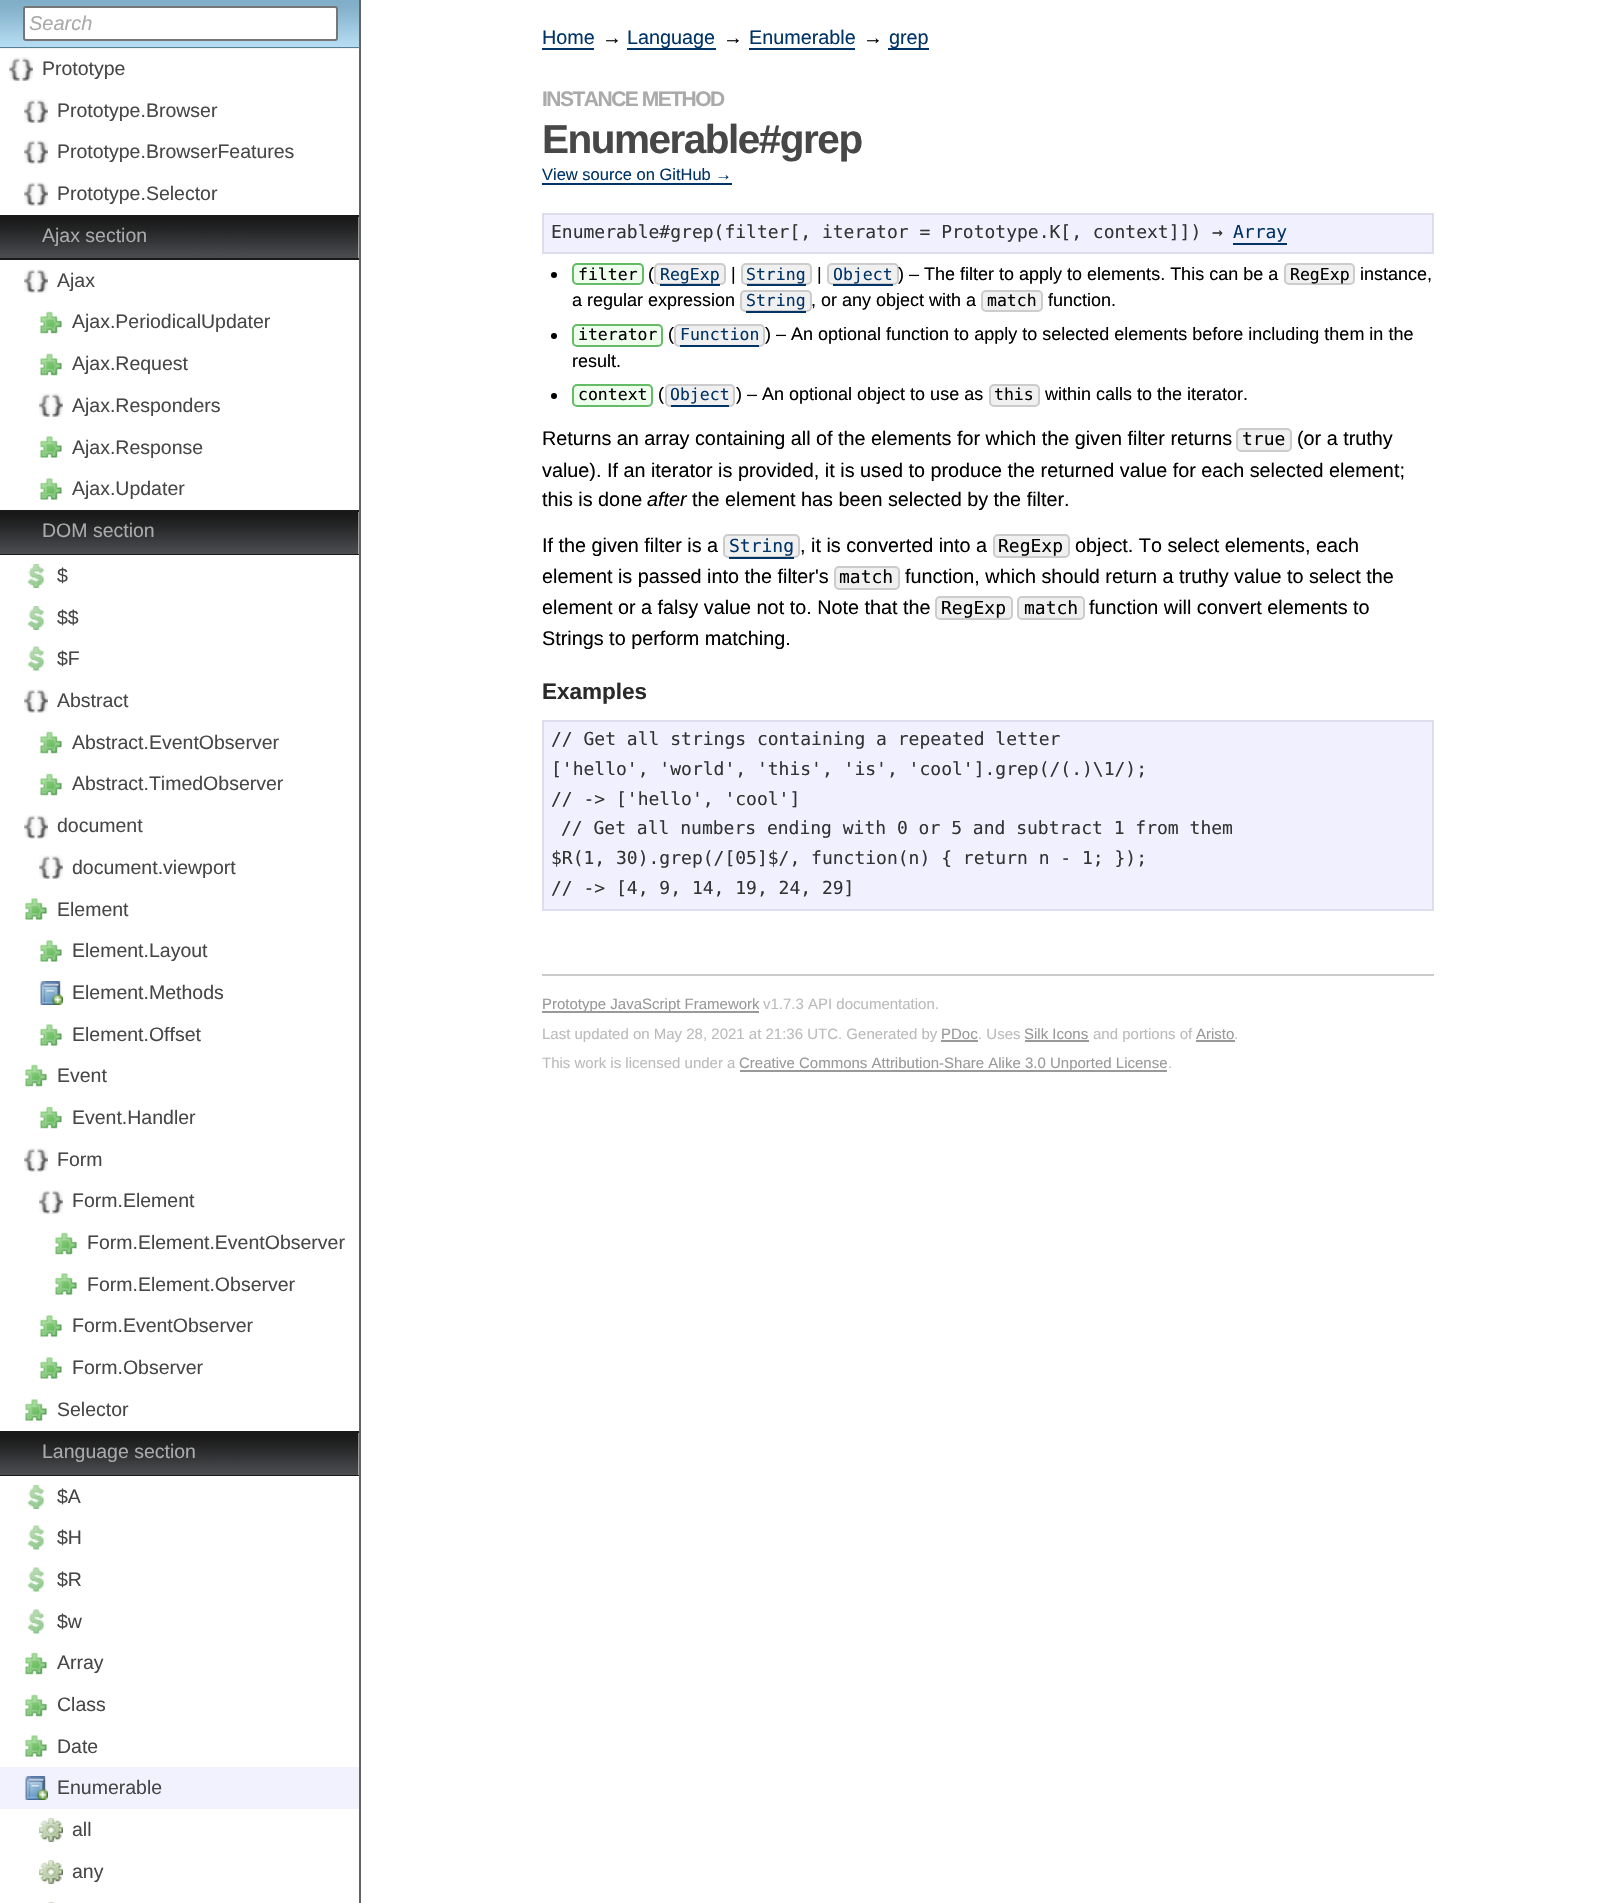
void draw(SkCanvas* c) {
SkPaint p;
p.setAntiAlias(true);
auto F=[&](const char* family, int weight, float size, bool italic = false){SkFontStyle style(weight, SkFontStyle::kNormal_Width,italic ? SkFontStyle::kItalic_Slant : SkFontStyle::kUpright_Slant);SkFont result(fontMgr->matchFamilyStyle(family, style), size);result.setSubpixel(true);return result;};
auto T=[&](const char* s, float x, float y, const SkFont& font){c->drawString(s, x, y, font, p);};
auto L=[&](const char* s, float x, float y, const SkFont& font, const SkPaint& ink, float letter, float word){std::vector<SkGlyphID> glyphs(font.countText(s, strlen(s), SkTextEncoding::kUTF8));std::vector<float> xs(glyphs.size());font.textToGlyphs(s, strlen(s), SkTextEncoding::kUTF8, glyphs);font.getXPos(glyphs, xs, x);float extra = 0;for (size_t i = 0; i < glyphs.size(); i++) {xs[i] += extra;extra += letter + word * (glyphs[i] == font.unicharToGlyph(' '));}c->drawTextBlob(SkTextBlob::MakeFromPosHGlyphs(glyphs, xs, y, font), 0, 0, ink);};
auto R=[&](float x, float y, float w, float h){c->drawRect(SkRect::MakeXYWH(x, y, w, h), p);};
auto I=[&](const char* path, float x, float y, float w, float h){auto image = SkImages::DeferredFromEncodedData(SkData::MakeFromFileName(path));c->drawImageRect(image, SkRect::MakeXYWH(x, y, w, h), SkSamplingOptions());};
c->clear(0xffffffff);
I("1.png",0,0,359,47);
p.setColor(0xff636363);
R(359,0,2,1903);
p.setColor(0xff587e93);
R(0,47,360,1);
p.setColor(0xffeef2f4);
R(0,48,359,1);
p.setColor(0xffffffff);
c->drawRoundRect(SkRect::MakeXYWH(24,7,313,33),2,2,p);
p.setStroke(true);
p.setStrokeWidth(2);
p.setColor(0xff767676);
c->drawRoundRect(SkRect::MakeXYWH(24,7,313,33),2,2,p);
auto f1 = F("Liberation Sans",400,20,true);
p.setStroke(false);
p.setColor(0xffaaaaaa);
T("Search",29,30,f1);
I("2.png",9,57,24,24);
auto f2 = F("Liberation Sans",400,19.5);
p.setColor(0xff474747);
T("Prototype",42,75,f2);
I("2.png",24,99,24,24);
T("Prototype.Browser",57,117,f2);
I("3.png",24,140,24,24);
T("Prototype.BrowserFeatures",57,158,f2);
I("3.png",24,182,24,24);
T("Prototype.Selector",57,200,f2);
I("4.png",0,217,359,41);
p.setColor(0xff1a1a1a);
R(0,215,359,2);
R(0,258,359,2);
p.setColor(0xffaaaaaa);
T("Ajax section",42,242,f2);
I("3.png",24,269,24,24);
p.setColor(0xff474747);
T("Ajax",57,287,f2);
I("5.png",40,311,22,23);
T("Ajax.PeriodicalUpdater",72,328,f2);
I("5.png",40,353,22,23);
T("Ajax.Request",72,370,f2);
I("2.png",39,393,24,24);
T("Ajax.Responders",72,412,f2);
I("6.png",40,436,22,22);
T("Ajax.Response",72,454,f2);
I("6.png",40,478,22,22);
T("Ajax.Updater",72,495,f2);
I("7.png",0,512,359,42);
p.setColor(0xff1a1a1a);
R(0,510,359,2);
R(0,554,359,1);
p.setColor(0xffaaaaaa);
T("DOM section",42,537,f2);
I("8.png",27,564,17,24);
p.setColor(0xff474747);
T("$",57,582,f2);
I("8.png",27,606,17,24);
T("$$",57,624,f2);
I("9.png",27,646,17,25);
T("$F",57,665,f2);
I("3.png",24,689,24,24);
T("Abstract",57,707,f2);
I("5.png",40,731,22,23);
T("Abstract.EventObserver",72,749,f2);
I("5.png",40,773,22,23);
T("Abstract.TimedObserver",72,790,f2);
I("3.png",24,815,24,24);
T("document",57,832,f2);
I("2.png",39,855,24,24);
T("document.viewport",72,874,f2);
I("6.png",25,898,22,22);
T("Element",57,916,f2);
I("6.png",40,940,22,22);
T("Element.Layout",72,957,f2);
I("10.png",40,981,23,24);
T("Element.Methods",72,999,f2);
I("6.png",40,1024,22,22);
T("Element.Offset",72,1041,f2);
I("5.png",25,1064,22,23);
T("Event",57,1082,f2);
I("5.png",40,1106,22,23);
T("Event.Handler",72,1124,f2);
I("3.png",24,1148,24,24);
T("Form",57,1166,f2);
I("3.png",39,1190,24,24);
T("Form.Element",72,1207,f2);
I("5.png",55,1232,22,23);
T("Form.Element.EventObserver",87,1249,f2);
I("6.png",55,1273,22,22);
T("Form.Element.Observer",87,1291,f2);
I("6.png",40,1315,22,22);
T("Form.EventObserver",72,1332,f2);
I("6.png",40,1357,22,22);
T("Form.Observer",72,1374,f2);
I("6.png",25,1399,22,22);
T("Selector",57,1416,f2);
I("11.png",0,1433,359,42);
p.setColor(0xff1a1a1a);
R(0,1431,359,2);
R(0,1475,359,1);
p.setColor(0xffaaaaaa);
T("Language section",42,1458,f2);
I("8.png",27,1485,17,24);
p.setColor(0xff474747);
T("$A",57,1503,f2);
I("9.png",27,1525,17,25);
T("$H",57,1544,f2);
I("9.png",27,1567,17,25);
T("$R",57,1586,f2);
I("9.png",27,1609,17,25);
T("$w",57,1628,f2);
I("5.png",25,1652,22,23);
T("Array",57,1669,f2);
I("5.png",25,1694,22,23);
T("Class",57,1711,f2);
I("6.png",25,1735,22,22);
T("Date",57,1753,f2);
p.setColor(0xfff2f2ff);
R(0,1767,359,42);
I("12.png",25,1776,23,24);
p.setColor(0xff474747);
T("Enumerable",57,1794,f2);
I("13.png",39,1818,24,24);
T("all",72,1836,f2);
I("13.png",39,1860,24,24);
T("any",72,1878,f2);
I("14.png",48,1902,7,1);
auto f3 = F("Liberation Sans",400,19.8);
p.setColor(0xff003366);
T("Home",542,44,f3);
R(542,48,52,2);
p.setColor(0xff000000);
T("→",602,44,f3);
p.setColor(0xff003366);
R(627,48,89,2);
T("Language",627,44,f3);
p.setColor(0xff000000);
T("→",723,44,f3);
p.setColor(0xff003366);
T("Enumerable",749,44,f3);
R(749,48,106,2);
p.setColor(0xff000000);
T("→",863,44,f3);
p.setColor(0xff003366);
R(888,48,41,2);
T("grep",889,44,f3);
auto f4 = F("Liberation Sans",700,21);
p.setColor(0xffaaaaaa);
L("INSTANCE METHOD",542,106,f4,p,-1.5,0);
auto f5 = F("Liberation Sans",700,40.5);
p.setColor(0xff474747);
L("Enumerable#grep",542,153,f5,p,-1.5,0);
auto f6 = F("Liberation Sans",400,16.5);
p.setColor(0xff003366);
T("View source on GitHub →",542,180,f6);
R(542,183,190,2);
p.setColor(0xfff0f0ff);
c->drawRect(SkRect::MakeXYWH(543,214,890,39),p);
p.setStroke(true);
p.setColor(0xffddddee);
c->drawRect(SkRect::MakeXYWH(543,214,890,39),p);
auto f7 = F("DejaVu Sans Mono",400,18);
p.setStroke(false);
p.setColor(0xff333333);
T("Enumerable#grep(filter[, iterator = Prototype.K[, context]]) →",551,238,f7);
p.setColor(0xff003366);
T("Array",1233,238,f7);
R(1233,243,54,2);
p.setColor(0xff000000);
c->drawCircle(554,275,3,p);
p.setColor(0xffeeffee);
c->drawRoundRect(SkRect::MakeXYWH(573,264,70,20),4,4,p);
p.setStroke(true);
p.setColor(0xff66bb66);
c->drawRoundRect(SkRect::MakeXYWH(573,264,70,20),4,4,p);
auto f8 = F("DejaVu Sans Mono",400,16.5);
p.setStroke(false);
p.setColor(0xff000000);
T("filter",578,280,f8);
auto f9 = F("Liberation Sans",400,18);
T("(",648,280,f9);
p.setColor(0xfff0f0f0);
c->drawRoundRect(SkRect::MakeXYWH(655,264,70,20),4,4,p);
p.setStroke(true);
p.setColor(0xffcccccc);
c->drawRoundRect(SkRect::MakeXYWH(655,264,70,20),4,4,p);
p.setStroke(false);
p.setColor(0xff003366);
T("RegExp",660,280,f8);
R(660,284,60,2);
p.setColor(0xff000000);
T("|",731,280,f9);
p.setColor(0xfff0f0f0);
c->drawRoundRect(SkRect::MakeXYWH(742,264,69,20),4,4,p);
p.setStroke(true);
p.setColor(0xffcccccc);
c->drawRoundRect(SkRect::MakeXYWH(742,264,69,20),4,4,p);
p.setStroke(false);
p.setColor(0xff003366);
T("String",746,280,f8);
R(747,284,59,2);
p.setColor(0xff000000);
T("|",817,280,f9);
p.setColor(0xfff0f0f0);
c->drawRoundRect(SkRect::MakeXYWH(828,264,70,20),4,4,p);
p.setStroke(true);
p.setColor(0xffcccccc);
c->drawRoundRect(SkRect::MakeXYWH(828,264,70,20),4,4,p);
p.setStroke(false);
p.setColor(0xff003366);
T("Object",833,280,f8);
R(833,284,60,2);
p.setColor(0xff000000);
T(") – The filter to apply to elements. This can be a",898,280,f9);
p.setColor(0xfff0f0f0);
c->drawRoundRect(SkRect::MakeXYWH(1285,264,69,20),4,4,p);
p.setStroke(true);
p.setColor(0xffcccccc);
c->drawRoundRect(SkRect::MakeXYWH(1285,264,69,20),4,4,p);
p.setStroke(false);
p.setColor(0xff000000);
T("RegExp",1290,280,f8);
T("instance,",1360,280,f9);
T("a regular expression",572,306,f9);
p.setColor(0xfff0f0f0);
c->drawRoundRect(SkRect::MakeXYWH(741,291,70,20),4,4,p);
p.setStroke(true);
p.setColor(0xffcccccc);
c->drawRoundRect(SkRect::MakeXYWH(741,291,70,20),4,4,p);
p.setStroke(false);
p.setColor(0xff003366);
T("String",746,306,f8);
R(746,311,60,2);
p.setColor(0xff000000);
T(", or any object with a",811,306,f9);
p.setColor(0xfff0f0f0);
c->drawRoundRect(SkRect::MakeXYWH(982,291,60,20),4,4,p);
p.setStroke(true);
p.setColor(0xffcccccc);
c->drawRoundRect(SkRect::MakeXYWH(982,291,60,20),4,4,p);
p.setStroke(false);
p.setColor(0xff000000);
T("match",987,306,f8);
T("function.",1048,306,f9);
c->drawCircle(554,336,3,p);
p.setColor(0xffeeffee);
c->drawRoundRect(SkRect::MakeXYWH(573,325,89,21),4,4,p);
p.setStroke(true);
p.setColor(0xff66bb66);
c->drawRoundRect(SkRect::MakeXYWH(573,325,89,21),4,4,p);
p.setStroke(false);
p.setColor(0xff000000);
T("iterator",578,340,f8);
T("(",668,340,f9);
p.setColor(0xfff0f0f0);
c->drawRoundRect(SkRect::MakeXYWH(675,325,89,21),4,4,p);
p.setStroke(true);
p.setColor(0xffcccccc);
c->drawRoundRect(SkRect::MakeXYWH(675,325,89,21),4,4,p);
p.setStroke(false);
p.setColor(0xff003366);
T("Function",680,340,f8);
R(680,345,79,2);
p.setColor(0xff000000);
T(") – An optional function to apply to selected elements before including them in the",765,340,f9);
T("result.",572,367,f9);
c->drawCircle(554,396,3,p);
p.setColor(0xffeeffee);
c->drawRoundRect(SkRect::MakeXYWH(573,385,79,21),4,4,p);
p.setStroke(true);
p.setColor(0xff66bb66);
c->drawRoundRect(SkRect::MakeXYWH(573,385,79,21),4,4,p);
p.setStroke(false);
p.setColor(0xff000000);
T("context",578,400,f8);
T("(",658,400,f9);
p.setColor(0xfff0f0f0);
c->drawRoundRect(SkRect::MakeXYWH(666,385,68,21),4,4,p);
p.setStroke(true);
p.setColor(0xffcccccc);
c->drawRoundRect(SkRect::MakeXYWH(666,385,68,21),4,4,p);
p.setStroke(false);
p.setColor(0xff003366);
T("Object",670,400,f8);
R(671,405,58,2);
p.setColor(0xff000000);
T(") – An optional object to use as",736,400,f9);
p.setColor(0xfff0f0f0);
c->drawRoundRect(SkRect::MakeXYWH(990,385,49,21),4,4,p);
p.setStroke(true);
p.setColor(0xffcccccc);
c->drawRoundRect(SkRect::MakeXYWH(990,385,49,21),4,4,p);
p.setStroke(false);
p.setColor(0xff000000);
T("this",994,400,f8);
T("within calls to the iterator.",1045,400,f9);
T("Returns an array containing all of the elements for which the given filter returns",542,445,f3);
p.setColor(0xfff0f0f0);
c->drawRoundRect(SkRect::MakeXYWH(1237,429,54,22),4,4,p);
p.setStroke(true);
p.setColor(0xffcccccc);
c->drawRoundRect(SkRect::MakeXYWH(1237,429,54,22),4,4,p);
p.setStroke(false);
p.setColor(0xff000000);
T("true",1242,445,f7);
T("(or a truthy",1297,445,f3);
T("value). If an iterator is provided, it is used to produce the returned value for each selected element;",542,477,f3);
T("this is done",542,506,f3);
auto f10 = F("Liberation Sans",400,19.8,true);
T("after",647,506,f10);
T("the element has been selected by the filter.",692,506,f3);
T("If the given filter is a",542,552,f3);
p.setColor(0xfff0f0f0);
c->drawRoundRect(SkRect::MakeXYWH(724,535,75,22),4,4,p);
p.setStroke(true);
p.setColor(0xffcccccc);
c->drawRoundRect(SkRect::MakeXYWH(724,535,75,22),4,4,p);
p.setStroke(false);
p.setColor(0xff003366);
T("String",729,552,f7);
R(729,557,65,2);
p.setColor(0xff000000);
T(", it is converted into a",800,552,f3);
p.setColor(0xfff0f0f0);
c->drawRoundRect(SkRect::MakeXYWH(994,535,75,22),4,4,p);
p.setStroke(true);
p.setColor(0xffcccccc);
c->drawRoundRect(SkRect::MakeXYWH(994,535,75,22),4,4,p);
p.setStroke(false);
p.setColor(0xff000000);
T("RegExp",998,552,f7);
T("object. To select elements, each",1075,552,f3);
T("element is passed into the filter's",542,583,f3);
p.setColor(0xfff0f0f0);
c->drawRoundRect(SkRect::MakeXYWH(835,567,64,22),4,4,p);
p.setStroke(true);
p.setColor(0xffcccccc);
c->drawRoundRect(SkRect::MakeXYWH(835,567,64,22),4,4,p);
p.setStroke(false);
p.setColor(0xff000000);
T("match",839,583,f7);
T("function, which should return a truthy value to select the",905,583,f3);
T("element or a falsy value not to. Note that the",542,614,f3);
p.setColor(0xfff0f0f0);
c->drawRoundRect(SkRect::MakeXYWH(936,597,76,22),4,4,p);
p.setStroke(true);
p.setColor(0xffcccccc);
c->drawRoundRect(SkRect::MakeXYWH(936,597,76,22),4,4,p);
p.setStroke(false);
p.setColor(0xff000000);
T("RegExp",941,614,f7);
p.setColor(0xfff0f0f0);
c->drawRoundRect(SkRect::MakeXYWH(1018,597,66,22),4,4,p);
p.setStroke(true);
p.setColor(0xffcccccc);
c->drawRoundRect(SkRect::MakeXYWH(1018,597,66,22),4,4,p);
p.setStroke(false);
p.setColor(0xff000000);
T("match",1024,614,f7);
T("function will convert elements to",1089,614,f3);
T("Strings to perform matching.",542,645,f3);
auto f11 = F("Liberation Sans",700,22.5);
p.setColor(0xff2a2a2a);
T("Examples",542,699,f11);
p.setColor(0xfff0f0ff);
c->drawRect(SkRect::MakeXYWH(543,721,890,189),p);
p.setStroke(true);
p.setColor(0xffddddee);
c->drawRect(SkRect::MakeXYWH(543,721,890,189),p);
p.setStroke(false);
p.setColor(0xff333333);
T("// Get all strings containing a repeated letter",551,745,f7);
T("['hello', 'world', 'this', 'is', 'cool'].grep(/(.)\\1/);",551,775,f7);
T("// -> ['hello', 'cool']",551,805,f7);
T("// Get all numbers ending with 0 or 5 and subtract 1 from them",561,834,f7);
T("$R(1, 30).grep(/[05]$/, function(n) { return n - 1; });",551,864,f7);
T("// -> [4, 9, 14, 19, 24, 29]",551,894,f7);
p.setColor(0xffcccccc);
R(542,974,892,2);
p.setColor(0xff999999);
R(542,1011,217,2);
auto f12 = F("Liberation Sans",400,15);
T("Prototype JavaScript Framework",542,1009,f12);
p.setColor(0xffbbbbbb);
T("v1.7.3 API documentation.",763,1009,f12);
T("Last updated on May 28, 2021 at 21:36 UTC. Generated by",542,1039,f12);
p.setColor(0xff999999);
T("PDoc",941,1039,f12);
R(941,1040,37,2);
p.setColor(0xffbbbbbb);
T(". Uses",978,1039,f12);
p.setColor(0xff999999);
T("Silk Icons",1024,1039,f12);
R(1025,1040,64,2);
p.setColor(0xffbbbbbb);
T("and portions of",1093,1039,f12);
p.setColor(0xff999999);
T("Aristo",1196,1039,f12);
R(1196,1040,39,2);
p.setColor(0xffbbbbbb);
T(".",1234,1039,f12);
T("This work is licensed under a",542,1068,f12);
p.setColor(0xff999999);
R(740,1070,427,2);
T("Creative Commons Attribution-Share Alike 3.0 Unported License",739,1068,f12);
p.setColor(0xffbbbbbb);
T(".",1168,1068,f12);
}
